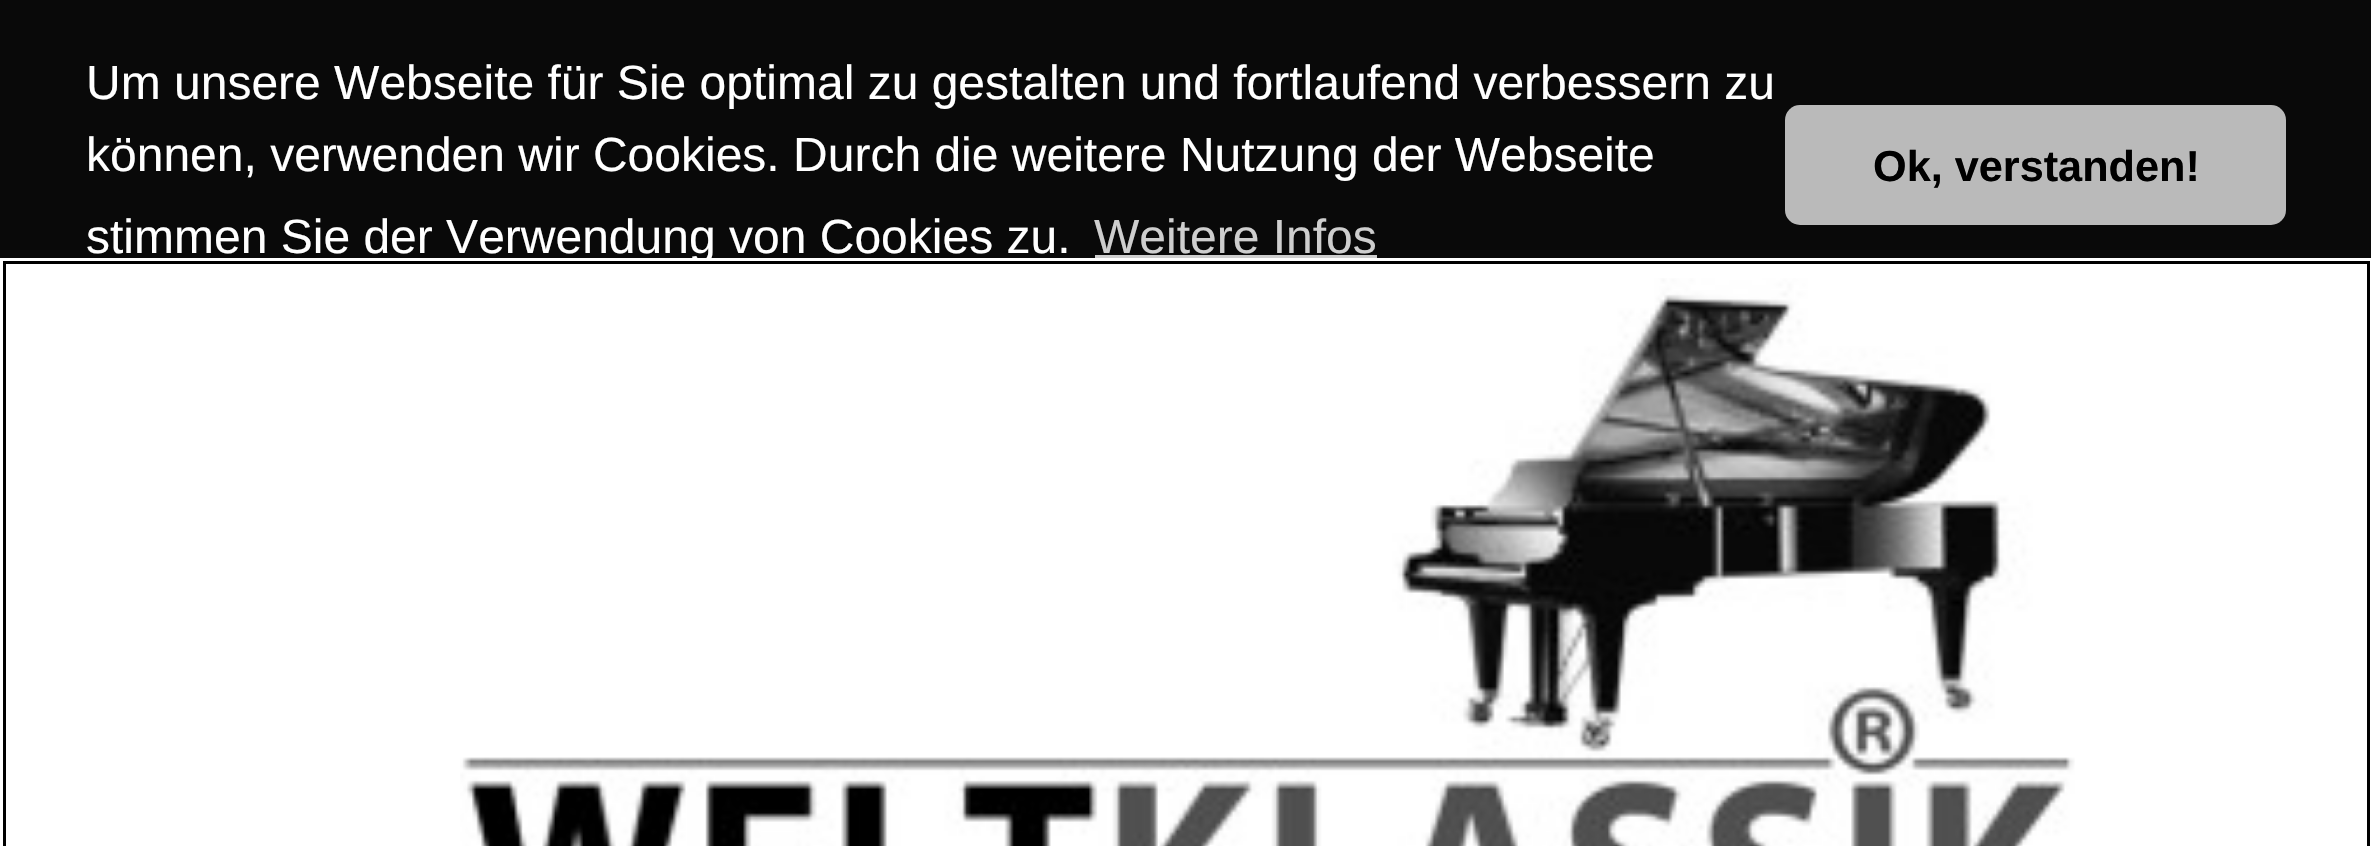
void draw(SkCanvas* c) {
SkPaint p;
p.setAntiAlias(true);
auto F=[&](const char* family, int weight, float size, bool italic = false){SkFontStyle style(weight, SkFontStyle::kNormal_Width,italic ? SkFontStyle::kItalic_Slant : SkFontStyle::kUpright_Slant);SkFont result(fontMgr->matchFamilyStyle(family, style), size);result.setSubpixel(true);return result;};
auto T=[&](const char* s, float x, float y, const SkFont& font){c->drawString(s, x, y, font, p);};
auto R=[&](float x, float y, float w, float h){c->drawRect(SkRect::MakeXYWH(x, y, w, h), p);};
auto Q=[&](float x, float y, float w, float h, float radius){c->drawRoundRect(SkRect::MakeXYWH(x, y, w, h), radius, radius, p);};
auto I=[&](const char* path, float x, float y, float w, float h){auto image = SkImages::DeferredFromEncodedData(SkData::MakeFromFileName(path));c->drawImageRect(image, SkRect::MakeXYWH(x, y, w, h), SkSamplingOptions());};
c->clear(0xffffffff);
p.setColor(0xff090909);
R(0,0,2371,258);
auto f1 = F("Liberation Sans",400,48);
p.setColor(0xffffffff);
T("Um unsere Webseite für Sie optimal zu gestalten und fortlaufend verbessern zu",86,99,f1);
T("können, verwenden wir Cookies. Durch die weitere Nutzung der Webseite",86,171,f1);
c->save();
c->clipRect(SkRect::MakeXYWH(0,0,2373,258));
T("stimmen Sie der Verwendung von Cookies zu.",86,253,f1);
c->restore();
p.setColor(0xffcecece);
T("Weitere Infos",1094,253,f1);
R(1095,255,282,3);
p.setColor(0xffbababa);
Q(1785,105,501,120,15);
auto f2 = F("Liberation Sans",700,43.25);
p.setColor(0xff000000);
T("Ok, verstanden!",1873,181,f2);
p.setStroke(true);
p.setStrokeWidth(3);
c->drawRect(SkRect::MakeXYWH(4.5,262.5,2364,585),p);
I("1.png",460,278,1615,568);
}
